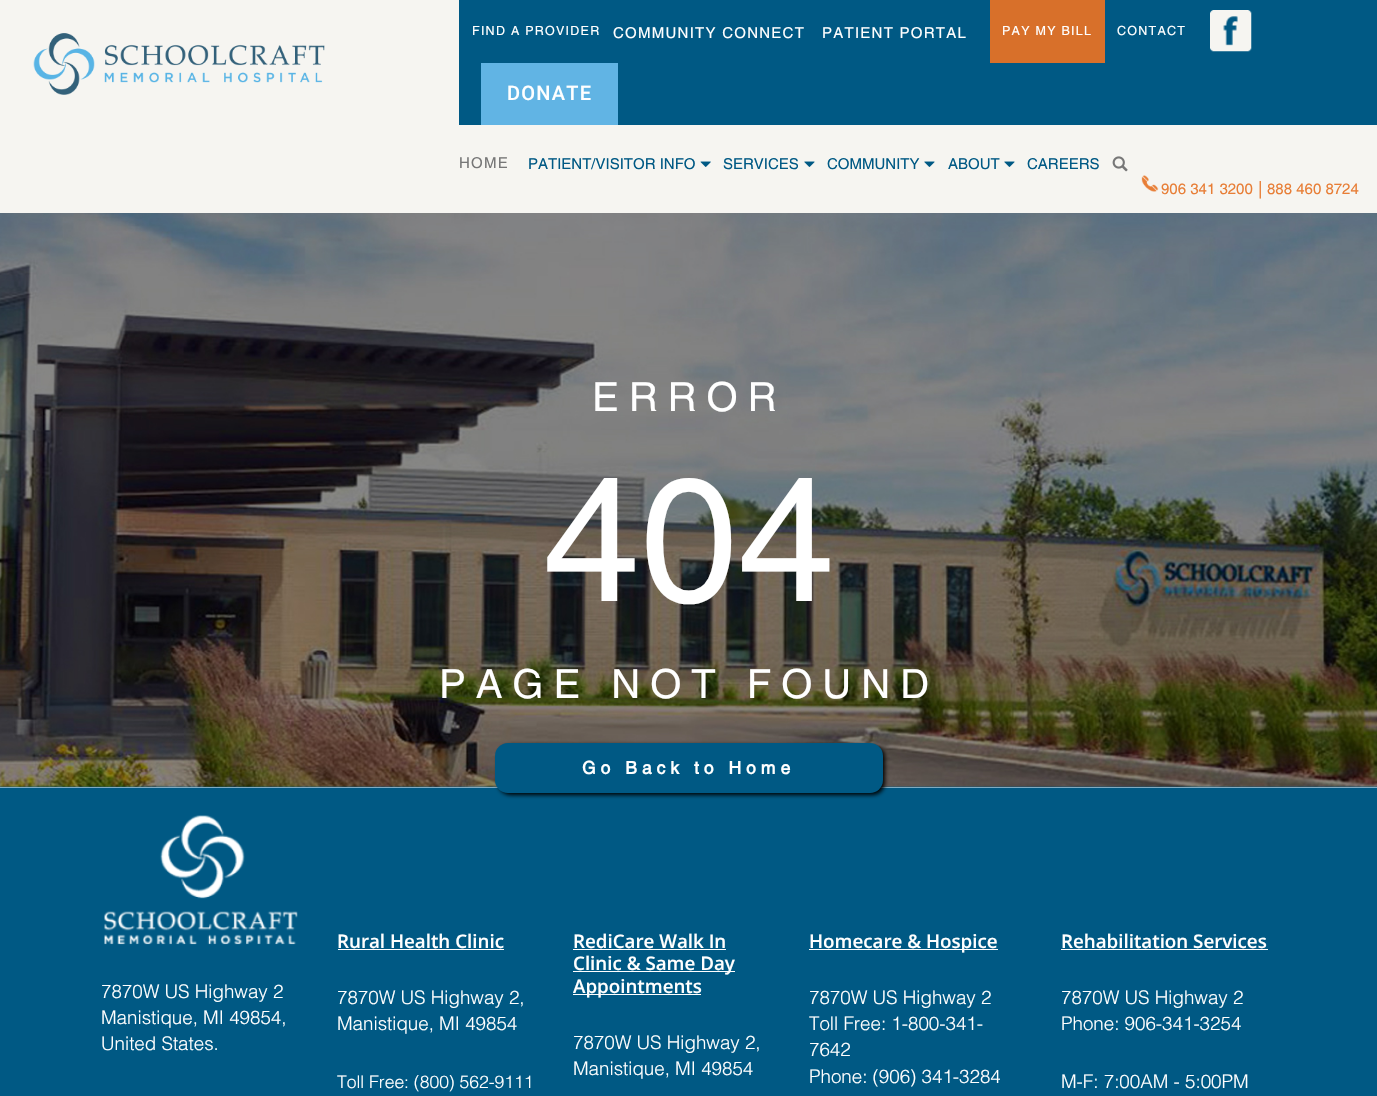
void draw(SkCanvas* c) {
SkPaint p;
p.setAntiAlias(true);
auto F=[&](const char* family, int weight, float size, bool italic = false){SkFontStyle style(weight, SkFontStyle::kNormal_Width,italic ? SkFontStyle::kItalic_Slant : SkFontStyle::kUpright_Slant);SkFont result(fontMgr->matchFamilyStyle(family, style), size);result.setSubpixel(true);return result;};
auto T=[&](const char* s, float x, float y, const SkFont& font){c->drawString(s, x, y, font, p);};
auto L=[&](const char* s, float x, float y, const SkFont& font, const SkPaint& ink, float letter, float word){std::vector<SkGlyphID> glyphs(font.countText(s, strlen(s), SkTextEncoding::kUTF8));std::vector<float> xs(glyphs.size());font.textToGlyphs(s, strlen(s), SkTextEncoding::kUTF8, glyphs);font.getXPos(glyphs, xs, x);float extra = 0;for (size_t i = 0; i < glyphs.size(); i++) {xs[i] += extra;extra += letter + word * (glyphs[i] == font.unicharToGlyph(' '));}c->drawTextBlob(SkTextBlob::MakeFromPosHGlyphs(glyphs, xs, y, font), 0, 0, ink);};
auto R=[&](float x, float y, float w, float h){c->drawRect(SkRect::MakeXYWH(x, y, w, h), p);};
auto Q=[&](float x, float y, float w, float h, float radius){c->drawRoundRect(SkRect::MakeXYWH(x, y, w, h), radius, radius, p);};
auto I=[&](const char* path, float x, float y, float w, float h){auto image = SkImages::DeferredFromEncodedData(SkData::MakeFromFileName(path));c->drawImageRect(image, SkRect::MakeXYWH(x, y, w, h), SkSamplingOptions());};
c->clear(0xffffffff);
p.setColor(0xfff6f5f1);
R(0,0,1377,213);
I("1.png",33,33,292,62);
p.setColor(0xff005984);
R(459,0,918,125);
auto f1 = F("Helvetica",400,12.5);
p.setColor(0xffffffff);
L("FIND A PROVIDER",472,35,f1,p,1.25,0);
auto f2 = F("Helvetica",400,15);
L("COMMUNITY CONNECT",613,38,f2,p,1.25,0);
L("PATIENT PORTAL",822,38,f2,p,1.25,0);
p.setColor(0xffd8702a);
R(990,0,115,63);
p.setColor(0xffffffff);
L("PAY MY BILL",1002,35,f1,p,1.25,0);
L("CONTACT",1117,35,f1,p,1.25,0);
I("2.png",1210,10,42,42);
p.setColor(0xff61b4e4);
R(481,63,137,62);
auto f3 = F("Roboto",500,20);
p.setColor(0xffffffff);
L("DONATE",507,100,f3,p,1.25,0);
p.setColor(0xff777777);
L("HOME",459,168,f2,p,1.25,0);
p.setColor(0xff005984);
T("PATIENT/VISITOR INFO",528,169,f2);
I("3.png",700,161,11,6);
T("SERVICES",723,169,f2);
I("4.png",804,161,11,6);
T("COMMUNITY",827,169,f2);
I("4.png",924,161,11,6);
T("ABOUT",948,169,f2);
I("4.png",1004,161,11,6);
T("CAREERS",1027,169,f2);
I("5.png",1112,156,16,16);
I("6.png",1141,175,18,17);
p.setColor(0xffe87e36);
T("906 341 3200",1161,194,f2);
auto f4 = F("Helvetica",400,17.5);
T("|",1258,194,f4);
T("888 460 8724",1267,194,f2);
I("7.png",0,213,1377,575);
auto f5 = F("Helvetica",400,40);
p.setColor(0xffffffff);
L("ERROR",592,411,f5,p,10,0);
auto f6 = F("Helvetica",400,175);
T("404",543,601,f6);
L("PAGE NOT FOUND",439,698,f5,p,10,0);
p.setColor(0xff005984);
R(0,788,1377,308);
p.setColor(0xff000000);
p.setMaskFilter(SkMaskFilter::MakeBlur(kNormal_SkBlurStyle, 2));
c->drawRoundRect(SkRect::MakeXYWH(498,745,387,50),13,13,p);
p.setMaskFilter(nullptr);
p.setColor(0xff005984);
Q(495,743,388,50,13);
auto f7 = F("Helvetica",700,17.5);
p.setColor(0xffffffff);
L("Go Back to Home",582,774,f7,p,5,0);
I("8.png",104,815,194,130);
auto f8 = F("Helvetica",300,18.75);
T("7870W US Highway 2",101,998,f8);
T("Manistique, MI 49854,",101,1024,f8);
T("United States.",101,1050,f8);
auto f9 = F("Open Sans",600,18.75);
T("Rural Health Clinic",337,948,f9);
R(338,949,166,1);
T("7870W US Highway 2,",337,1004,f8);
T("Manistique, MI 49854",337,1030,f8);
auto f10 = F("Helvetica",300,17.5);
T("Toll Free: (800) 562-9111",337,1088,f10);
T("RediCare Walk In",573,948,f9);
R(573,949,153,1);
R(573,971,162,1);
T("Clinic & Same Day",573,970,f9);
R(573,994,128,1);
T("Appointments",573,993,f9);
T("7870W US Highway 2,",573,1049,f8);
T("Manistique, MI 49854",573,1075,f8);
R(809,949,189,1);
T("Homecare & Hospice",809,948,f9);
T("7870W US Highway 2",809,1004,f8);
T("Toll Free: 1-800-341-",809,1030,f8);
T("7642",809,1056,f8);
T("Phone: (906) 341-3284",809,1083,f8);
T("Rehabilitation Services",1061,948,f9);
R(1061,949,207,1);
T("7870W US Highway 2",1061,1004,f8);
T("Phone: 906-341-3254",1061,1030,f8);
T("M-F: 7:00AM - 5:00PM",1061,1088,f8);
}
